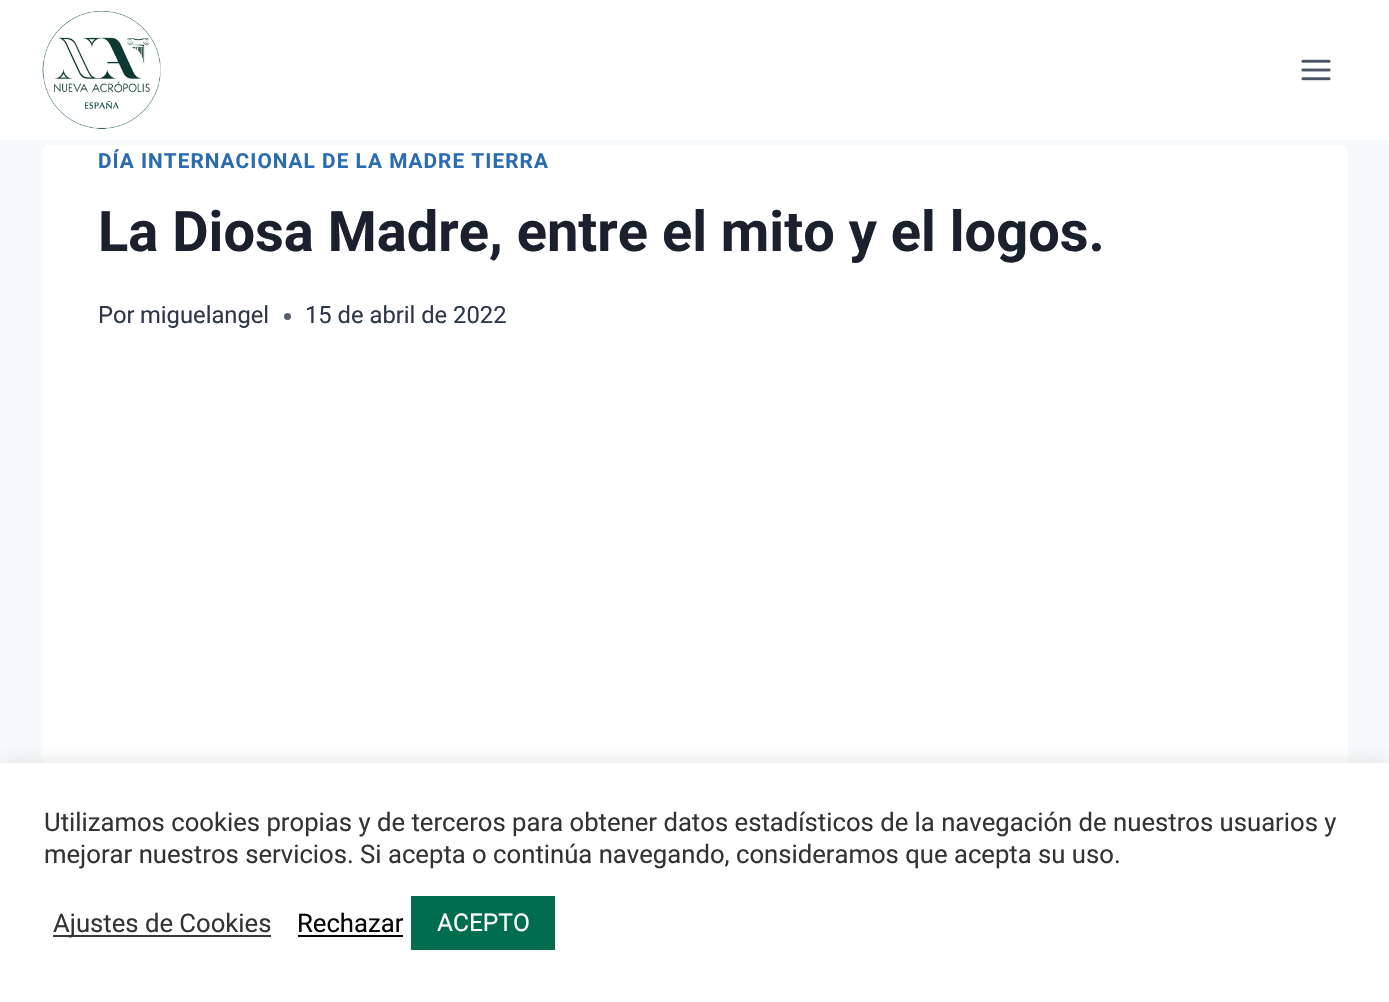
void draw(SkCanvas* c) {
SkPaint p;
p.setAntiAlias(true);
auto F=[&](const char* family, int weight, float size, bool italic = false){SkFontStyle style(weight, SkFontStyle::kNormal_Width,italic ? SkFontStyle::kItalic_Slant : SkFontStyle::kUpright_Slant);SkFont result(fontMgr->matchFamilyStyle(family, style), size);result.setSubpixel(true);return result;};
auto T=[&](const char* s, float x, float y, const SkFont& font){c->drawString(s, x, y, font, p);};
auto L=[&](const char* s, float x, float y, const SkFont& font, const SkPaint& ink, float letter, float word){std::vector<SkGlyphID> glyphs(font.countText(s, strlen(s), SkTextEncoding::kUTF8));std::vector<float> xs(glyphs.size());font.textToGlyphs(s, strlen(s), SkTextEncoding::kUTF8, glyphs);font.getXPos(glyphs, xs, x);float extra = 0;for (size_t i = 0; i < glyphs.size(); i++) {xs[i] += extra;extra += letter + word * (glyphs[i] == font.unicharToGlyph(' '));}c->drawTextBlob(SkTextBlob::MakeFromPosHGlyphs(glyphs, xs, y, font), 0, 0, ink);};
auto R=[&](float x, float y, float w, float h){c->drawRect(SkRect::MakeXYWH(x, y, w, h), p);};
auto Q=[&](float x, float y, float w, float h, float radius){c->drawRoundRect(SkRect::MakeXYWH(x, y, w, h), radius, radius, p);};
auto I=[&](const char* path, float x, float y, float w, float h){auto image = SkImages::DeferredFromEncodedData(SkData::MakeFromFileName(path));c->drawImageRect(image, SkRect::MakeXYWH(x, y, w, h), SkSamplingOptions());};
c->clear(0xfff7fafc);
p.setColor(0xffffffff);
R(0,0,1389,140);
I("1.png",42,11,119,118);
I("2.png",1301,59,30,22);
Q(42,145,1306,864,7);
auto f1 = F("Roboto",700,20.8);
p.setColor(0xff2b6cb0);
L("DÍA INTERNACIONAL DE LA MADRE TIERRA",98,168,f1,p,1.05,0);
auto f2 = F("Roboto",700,56);
p.setColor(0xff1a202c);
T("La Diosa Madre, entre el mito y el logos.",98,251,f2);
auto f3 = F("Roboto",400,23.75);
p.setColor(0xff2d3748);
T("Por",98,323,f3);
T("miguelangel",140,323,f3);
p.setColor(0xff575f6d);
c->drawCircle(287.5,316.5,3.5,p);
p.setColor(0xff2d3748);
T("15 de abril de 2022",305,323,f3);
p.setColor(0x4dacabab);
p.setMaskFilter(SkMaskFilter::MakeBlur(kNormal_SkBlurStyle, 9));
c->drawRect(SkRect::MakeXYWH(0,761,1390,240),p);
p.setMaskFilter(nullptr);
p.setColor(0xffffffff);
R(0,763,1389,239);
auto f4 = F("Roboto",400,25.67);
p.setColor(0xff333333);
T("Utilizamos cookies propias y de terceros para obtener datos estadísticos de la navegación de nuestros usuarios y",44,831,f4);
T("mejorar nuestros servicios. Si acepta o continúa navegando, consideramos que acepta su uso.",44,863,f4);
p.setColor(0xff383838);
R(53,935,218,2);
p.setColor(0xff333333);
T("Ajustes de Cookies",53,932,f4);
p.setColor(0xff020202);
T("Rechazar",297,932,f4);
R(298,935,105,2);
p.setColor(0xff006d4e);
R(411,896,144,54);
auto f5 = F("Roboto",400,24.5);
p.setColor(0xffffffff);
T("ACEPTO",437,931,f5);
}
